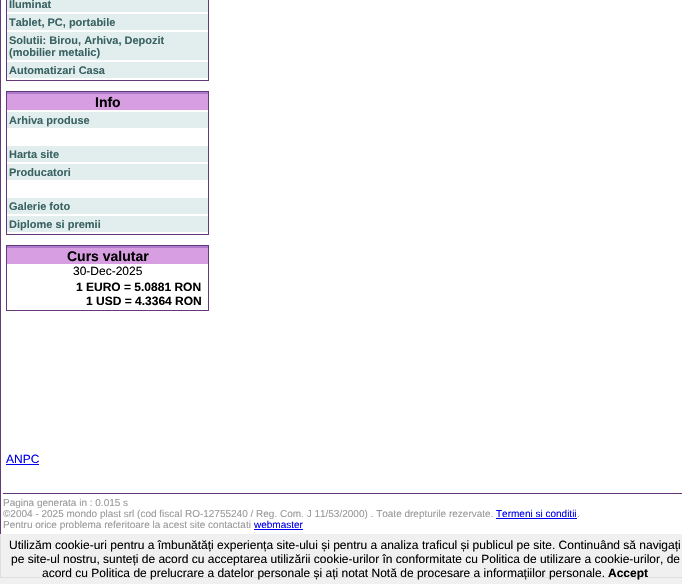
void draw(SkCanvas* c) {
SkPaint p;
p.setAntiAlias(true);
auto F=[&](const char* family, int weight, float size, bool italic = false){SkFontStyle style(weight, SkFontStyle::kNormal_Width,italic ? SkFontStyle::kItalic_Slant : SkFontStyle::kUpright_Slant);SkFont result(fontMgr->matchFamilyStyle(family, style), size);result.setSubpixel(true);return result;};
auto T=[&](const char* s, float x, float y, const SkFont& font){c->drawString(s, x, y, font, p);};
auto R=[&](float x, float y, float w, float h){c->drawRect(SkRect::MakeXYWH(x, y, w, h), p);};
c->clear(0xfff8f9fa);
p.setColor(0xffffffff);
c->drawRect(SkRect::MakeXYWH(.5,-.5,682,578),p);
p.setStroke(true);
p.setStrokeWidth(1);
p.setColor(0xff653979);
c->drawRect(SkRect::MakeXYWH(.5,-.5,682,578),p);
c->drawRect(SkRect::MakeXYWH(6.5,-.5,202,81),p);
p.setStroke(false);
p.setColor(0xffe2eeee);
R(7,0,201,12);
auto f1 = F("Liberation Sans",700,11);
p.setColor(0xff3a6262);
T("Iluminat",9,8,f1);
p.setColor(0xffe2eeee);
R(7,14,201,16);
p.setColor(0xff3a6262);
T("Tablet, PC, portabile",9,26,f1);
p.setColor(0xffe2eeee);
R(7,32,201,28);
p.setColor(0xff3a6262);
T("Solutii: Birou, Arhiva, Depozit",9,44,f1);
T("(mobilier metalic)",9,56,f1);
p.setColor(0xffe2eeee);
R(7,62,201,16);
p.setColor(0xff3a6262);
T("Automatizari Casa",9,74,f1);
p.setStroke(true);
p.setColor(0xff653979);
c->drawRect(SkRect::MakeXYWH(6.5,91.5,202,143),p);
p.setStroke(false);
p.setColor(0xffd79ee1);
R(7,94,201,16);
p.setColor(0xffad7acd);
R(7,92,201,2);
auto f2 = F("Liberation Sans",700,14);
p.setColor(0xff000000);
T("Info",95,107,f2);
p.setColor(0xffe2eeee);
R(7,112,201,16);
p.setColor(0xff3a6262);
T("Arhiva produse",9,124,f1);
p.setColor(0xffe2eeee);
R(7,146,201,16);
p.setColor(0xff3a6262);
T("Harta site",9,158,f1);
p.setColor(0xffe2eeee);
R(7,164,201,16);
p.setColor(0xff3a6262);
T("Producatori",9,176,f1);
p.setColor(0xffe2eeee);
R(7,198,201,16);
p.setColor(0xff3a6262);
T("Galerie foto",9,210,f1);
p.setColor(0xffe2eeee);
R(7,216,201,16);
p.setColor(0xff3a6262);
T("Diplome si premii",9,228,f1);
p.setStroke(true);
p.setColor(0xff653979);
c->drawRect(SkRect::MakeXYWH(6.5,245.5,202,65),p);
p.setStroke(false);
p.setColor(0xffd79ee1);
R(7,248,201,16);
p.setColor(0xffad7acd);
R(7,246,201,2);
p.setColor(0xff000000);
T("Curs valutar",67,261,f2);
auto f3 = F("Liberation Sans",400,12);
T("30-Dec-2025",73,275,f3);
auto f4 = F("Liberation Sans",700,12);
T("1 EURO = 5.0881 RON",76,291,f4);
T("1 USD = 4.3364 RON",86,305,f4);
p.setColor(0xff0000ee);
T("ANPC",6,463,f3);
R(6,464,33,1);
p.setColor(0xff653979);
R(3,493,679,1);
auto f5 = F("Liberation Sans",400,10);
p.setColor(0xff999999);
T("Pagina generata in : 0.015 s",3,506,f5);
T("©2004 - 2025 mondo plast srl (cod fiscal RO-12755240 / Reg. Com. J 11/53/2000) . Toate drepturile rezervate.",3,517,f5);
p.setColor(0xff0000ee);
T("Termeni si conditii",496,517,f5);
R(496,518,81,1);
p.setColor(0xff999999);
T(".",577,517,f5);
T("Pentru orice problema referitoare la acest site contactati",3,528,f5);
p.setColor(0xff0000ee);
T("webmaster",254,528,f5);
R(254,529,49,1);
p.setColor(0xe6eeeeee);
R(0,534,682,50);
p.setColor(0xff000000);
T("Utilizăm cookie-uri pentru a îmbunătăți experiența site-ului și pentru a analiza traficul și publicul pe site. Continuând să navigați",9,549,f3);
T("pe site-ul nostru, sunteți de acord cu acceptarea utilizării cookie-urilor în conformitate cu Politica de utilizare a cookie-urilor, de",11,563,f3);
T("acord cu Politica de prelucrare a datelor personale și ați notat Notă de procesare a informațiilor personale.",42,577,f3);
T("Accept",608,577,f4);
}
